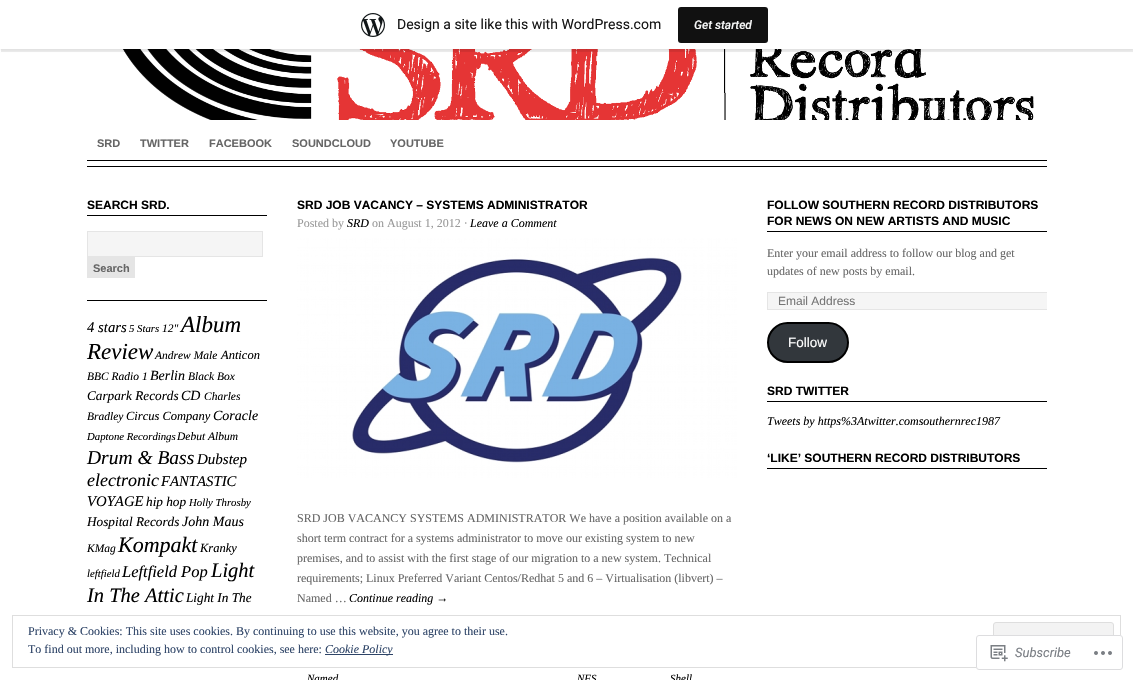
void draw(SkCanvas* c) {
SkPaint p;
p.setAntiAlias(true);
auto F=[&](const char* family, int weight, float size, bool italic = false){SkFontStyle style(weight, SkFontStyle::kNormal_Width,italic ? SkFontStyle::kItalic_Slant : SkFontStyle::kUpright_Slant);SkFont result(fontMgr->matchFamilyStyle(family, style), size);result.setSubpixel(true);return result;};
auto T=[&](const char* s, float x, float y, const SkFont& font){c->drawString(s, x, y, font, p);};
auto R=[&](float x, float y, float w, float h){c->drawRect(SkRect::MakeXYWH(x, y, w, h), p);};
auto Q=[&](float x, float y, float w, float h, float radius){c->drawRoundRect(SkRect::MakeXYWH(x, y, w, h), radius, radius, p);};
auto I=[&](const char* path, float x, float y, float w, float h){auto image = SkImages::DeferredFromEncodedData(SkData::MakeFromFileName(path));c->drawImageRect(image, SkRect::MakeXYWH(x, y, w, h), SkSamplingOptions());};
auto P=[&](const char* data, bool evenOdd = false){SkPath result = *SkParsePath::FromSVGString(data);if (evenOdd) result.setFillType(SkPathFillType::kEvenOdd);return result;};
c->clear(0xffffffff);
I("2.png",105,49,929,71);
p.setColor(0x0d000000);
p.setMaskFilter(SkMaskFilter::MakeBlur(kNormal_SkBlurStyle, 1));
c->drawRect(SkRect::MakeXYWH(0,1,1133,49),p);
p.setMaskFilter(nullptr);
p.setColor(0x14000000);
c->drawPath(P("M1 49v3h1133v-49h-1v46z"),p);
p.setColor(0xffffffff);
R(0,0,1133,49);
I("1.png",361,13,24,24);
auto f1 = F("Roboto",400,14);
p.setColor(0xff171717);
T("Design a site like this with WordPress.com",397,29,f1);
p.setColor(0xff111111);
Q(678,7,90,36,3);
auto f2 = F("Roboto",500,12,true);
p.setColor(0xfff6f7f7);
T("Get started",694,29,f2);
p.setColor(0xff000000);
R(87,160,960,1);
auto f3 = F("Liberation Sans",700,11);
p.setColor(0xff666666);
T("SRD",97,147,f3);
T("TWITTER",140,147,f3);
T("FACEBOOK",209,147,f3);
T("SOUNDCLOUD",292,147,f3);
T("YOUTUBE",390,147,f3);
p.setColor(0xff000000);
R(87,166,960,1);
R(87,215,180,1);
auto f4 = F("Liberation Sans",700,12);
T("SEARCH SRD.",87,209,f4);
p.setColor(0xfff5f5f5);
c->drawRect(SkRect::MakeXYWH(87.5,231.5,175,25),p);
p.setStroke(true);
p.setStrokeWidth(1);
p.setColor(0xffe5e5e5);
c->drawRect(SkRect::MakeXYWH(87.5,231.5,175,25),p);
p.setStroke(false);
R(87,257,48,21);
p.setColor(0xff666666);
T("Search",93,272,f3);
p.setColor(0xff000000);
R(87,300,180,1);
auto f5 = F("Liberation Serif",400,14.75,true);
T("4 stars",87,332,f5);
auto f6 = F("Liberation Serif",400,10.75,true);
T("5 Stars",129,332,f6);
auto f7 = F("Liberation Serif",400,11.5,true);
T("12\"",162,332,f7);
auto f8 = F("Liberation Serif",400,23,true);
T("Album",181,332,f8);
T("Review",87,359,f8);
T("Andrew Male",155,359,f7);
auto f9 = F("Liberation Serif",400,12.5,true);
T("Anticon",221,359,f9);
T("BBC Radio 1",87,380,f7);
auto f10 = F("Liberation Serif",400,14,true);
T("Berlin",150,380,f10);
T("Black Box",188,380,f7);
auto f11 = F("Liberation Serif",400,13.25,true);
T("Carpark Records",87,400,f11);
T("CD",181,400,f10);
T("Charles",204,400,f7);
T("Bradley",87,420,f7);
T("Circus Company",126,420,f9);
T("Coracle",213,420,f10);
T("Daptone Recordings",87,440,f6);
T("Debut Album",177,440,f7);
auto f12 = F("Liberation Serif",400,19.5,true);
T("Drum & Bass",87,464,f12);
auto f13 = F("Liberation Serif",400,15,true);
T("Dubstep",197,464,f13);
auto f14 = F("Liberation Serif",400,18,true);
T("electronic",87,486,f14);
T("FANTASTIC",161,486,f5);
T("VOYAGE",87,506,f5);
T("hip hop",146,506,f11);
T("Holly Throsby",189,506,f6);
T("Hospital Records",87,526,f11);
T("John Maus",182,526,f10);
T("KMag",87,552,f7);
auto f15 = F("Liberation Serif",400,22,true);
T("Kompakt",118,552,f15);
T("Kranky",200,552,f9);
T("leftfield",87,577,f6);
auto f16 = F("Liberation Serif",400,16.5,true);
T("Leftfield Pop",122,577,f16);
auto f17 = F("Liberation Serif",400,20.5,true);
T("Light",211,577,f17);
T("In The Attic",87,602,f17);
T("Light In The",186,602,f11);
T("SRD JOB VACANCY – SYSTEMS ADMINISTRATOR",297,209,f4);
auto f18 = F("Liberation Serif",400,12);
p.setColor(0xff999999);
T("Posted by",297,227,f18);
auto f19 = F("Liberation Serif",400,12,true);
p.setColor(0xff000000);
T("SRD",347,227,f19);
p.setColor(0xff999999);
T("on August 1, 2012 ·",372,227,f18);
p.setColor(0xff000000);
T("Leave a Comment",470,227,f19);
I("3.png",297,238,440,240);
p.setColor(0xff666666);
T("SRD JOB VACANCY SYSTEMS ADMINISTRATOR We have a position available on a",297,522,f18);
T("short term contract for a systems administrator to move our existing system to new",297,542,f18);
T("premises, and to assist with the first stage of our migration to a new system. Technical",297,562,f18);
T("requirements; Linux Preferred Variant Centos/Redhat 5 and 6 – Virtualisation (libvert) –",297,582,f18);
T("Named …",297,602,f18);
p.setColor(0xff000000);
T("Continue reading →",349,602,f19);
auto f20 = F("Liberation Serif",400,11,true);
T("Named",307,682,f20);
T("NFS",577,682,f20);
T("Shell",670,682,f20);
R(767,231,280,1);
T("FOLLOW SOUTHERN RECORD DISTRIBUTORS",767,209,f4);
T("FOR NEWS ON NEW ARTISTS AND MUSIC",767,225,f4);
p.setColor(0xff666666);
T("Enter your email address to follow our blog and get",767,257,f18);
T("updates of new posts by email.",767,275,f18);
p.setColor(0xfff5f5f5);
R(768,293,279,16);
c->save();
c->clipRect(SkRect::MakeXYWH(767,197,280,302));
p.setStroke(true);
p.setColor(0xffe5e5e5);
c->drawRect(SkRect::MakeXYWH(767.5,292.5,287,17),p);
c->restore();
auto f21 = F("Liberation Sans",400,12);
p.setStroke(false);
p.setColor(0xff757575);
T("Email Address",778,305,f21);
p.setColor(0xff32373c);
c->drawRoundRect(SkRect::MakeXYWH(768,323,80,39),19.5,19.5,p);
p.setStroke(true);
p.setStrokeWidth(2);
p.setColor(0xff000000);
c->drawRoundRect(SkRect::MakeXYWH(768,323,80,39),19.5,19.5,p);
auto f22 = F("Liberation Sans",400,13.5);
p.setStroke(false);
p.setColor(0xffffffff);
T("Follow",788,347,f22);
p.setColor(0xff000000);
R(767,401,280,1);
T("SRD TWITTER",767,395,f4);
T("Tweets by https%3Atwitter.comsouthernrec1987",767,425,f19);
R(767,468,280,1);
T("‘LIKE’ SOUTHERN RECORD DISTRIBUTORS",767,462,f4);
p.setStroke(true);
p.setStrokeWidth(1);
p.setColor(0xffdedede);
c->drawRect(SkRect::MakeXYWH(12.5,615.5,1108,52),p);
p.setStroke(false);
p.setColor(0xff2e4467);
T("Privacy & Cookies: This site uses cookies. By continuing to use this website, you agree to their use.",28,635,f18);
p.setColor(0xfff3f3f3);
c->drawRoundRect(SkRect::MakeXYWH(993.5,622.5,120,38),2.5,2.5,p);
p.setStroke(true);
p.setColor(0xffdedede);
c->drawRoundRect(SkRect::MakeXYWH(993.5,622.5,120,38),2.5,2.5,p);
p.setStroke(false);
p.setColor(0xff2e4467);
T("To find out more, including how to control cookies, see here:",28,653,f18);
R(325,654,68,1);
T("Cookie Policy",325,653,f19);
p.setColor(0xfaffffff);
Q(976,635,147,35,3);
p.setStroke(true);
p.setColor(0xfadcdcde);
c->drawRoundRect(SkRect::MakeXYWH(976.5,635.5,146,34),2.5,2.5,p);
I("4.png",990,645,18,17);
auto f23 = F("Roboto",400,13,true);
p.setStroke(false);
p.setColor(0xff7a7e84);
T("Subscribe",1015,657,f23);
I("5.png",1094,651,18,4);
}
